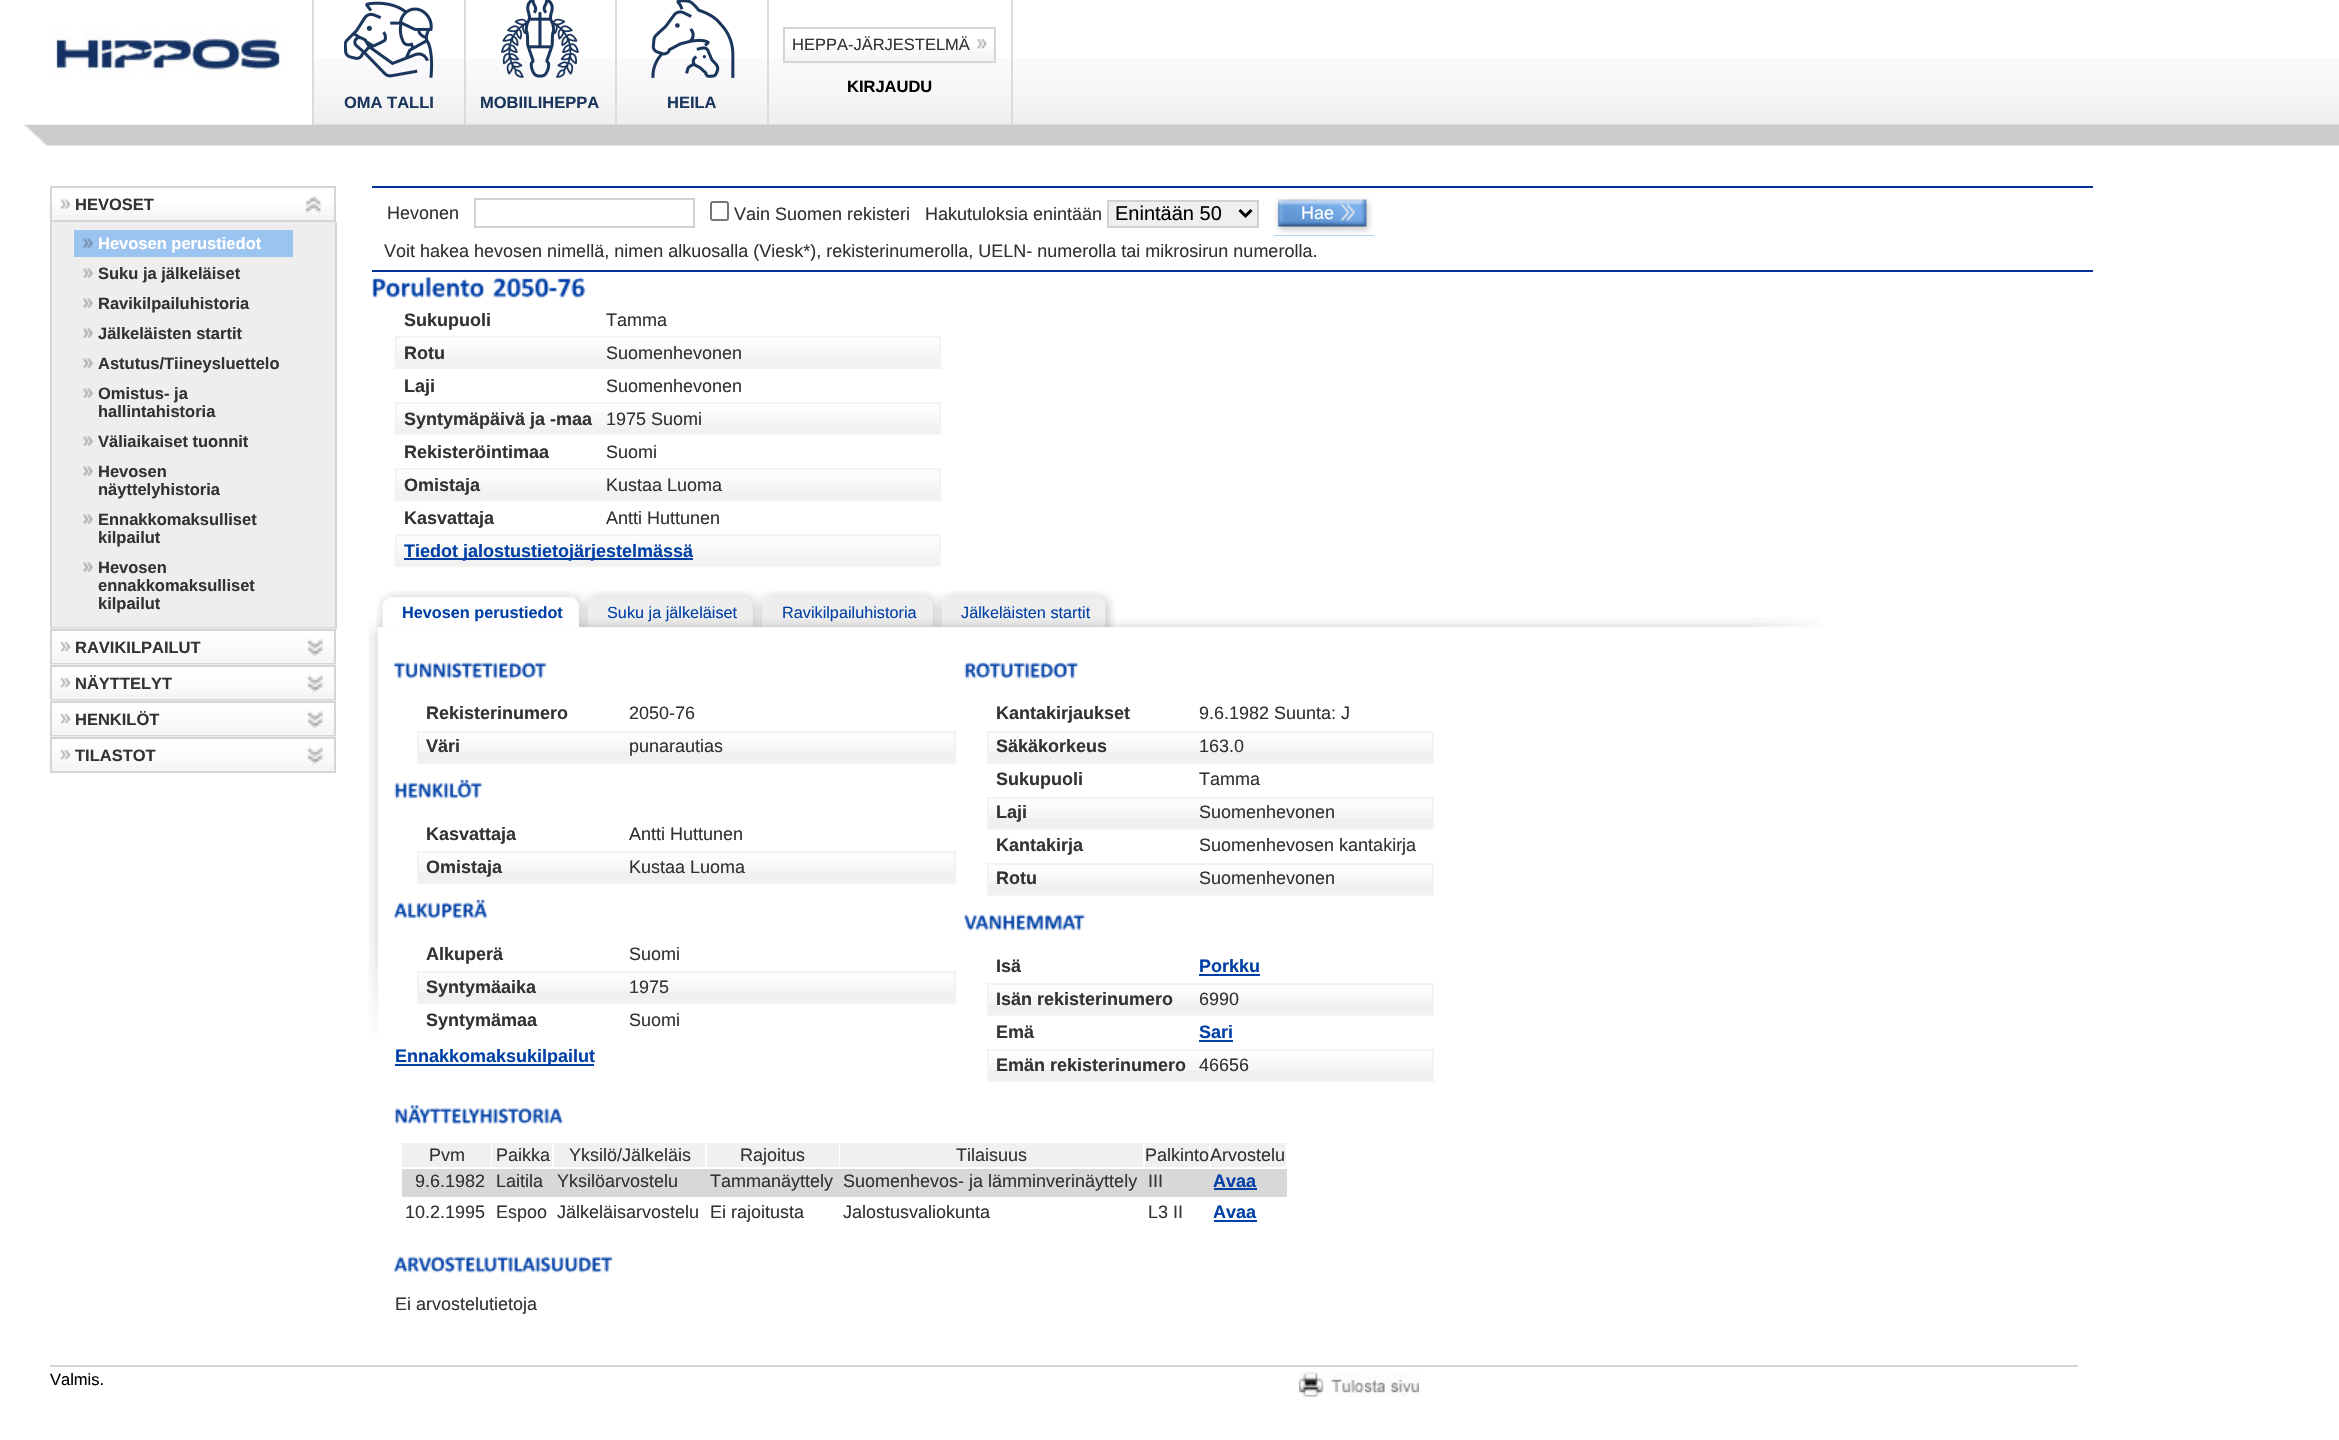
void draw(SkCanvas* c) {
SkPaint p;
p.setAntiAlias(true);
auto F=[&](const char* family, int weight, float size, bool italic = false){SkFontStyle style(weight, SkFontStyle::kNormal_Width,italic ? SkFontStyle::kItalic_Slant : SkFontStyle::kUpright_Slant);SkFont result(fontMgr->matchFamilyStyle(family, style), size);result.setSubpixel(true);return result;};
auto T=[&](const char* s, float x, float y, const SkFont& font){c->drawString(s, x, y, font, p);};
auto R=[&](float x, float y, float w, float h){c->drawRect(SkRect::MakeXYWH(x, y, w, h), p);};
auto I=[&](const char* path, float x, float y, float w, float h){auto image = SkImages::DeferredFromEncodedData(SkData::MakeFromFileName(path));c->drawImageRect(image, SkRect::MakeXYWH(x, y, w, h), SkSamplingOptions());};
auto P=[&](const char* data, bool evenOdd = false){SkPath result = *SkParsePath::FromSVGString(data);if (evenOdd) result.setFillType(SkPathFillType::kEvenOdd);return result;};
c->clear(0xffffffff);
I("1.png",24,58,2315,67);
I("8.png",24,124,2315,22);
I("2.png",24,30,288,95);
p.setColor(0xffdbdbdb);
R(1011,0,2,125);
R(767,0,2,125);
I("3.png",785,47,209,14);
p.setStroke(true);
p.setStrokeWidth(2);
p.setColor(0xffd5d5d5);
c->drawRect(SkRect::MakeXYWH(784,28,211,34),p);
auto f1 = F("Liberation Sans",400,16.5);
p.setStroke(false);
p.setColor(0xff333333);
T("HEPPA-JÄRJESTELMÄ",792,50,f1);
I("4.png",976,39,11,10);
auto f2 = F("Liberation Sans",700,16.5);
p.setColor(0xff000000);
T("KIRJAUDU",847,92,f2);
p.setColor(0xffdbdbdb);
R(312,0,2,125);
I("5.png",344,1,90,77);
p.setColor(0xff1b365d);
T("OMA TALLI",344,108,f2);
p.setColor(0xffdbdbdb);
R(464,0,2,125);
I("6.png",501,0,78,78);
p.setColor(0xff1b365d);
T("MOBIILIHEPPA",480,108,f2);
p.setColor(0xffdbdbdb);
R(615,0,2,125);
I("7.png",651,0,84,78);
p.setColor(0xff1b365d);
T("HEILA",667,108,f2);
I("9.png",49,205,285,16);
p.setStroke(true);
p.setColor(0xffd5d5d5);
c->drawRect(SkRect::MakeXYWH(51,187,284,34),p);
I("10.png",60,199,11,10);
p.setStroke(false);
p.setColor(0xff333333);
T("HEVOSET",75,210,f2);
I("11.png",306,196,15,17);
p.setColor(0xffeeeeee);
R(52,222,283,405);
p.setColor(0xffd5d5d5);
R(335,222,2,407);
R(50,627,286,2);
R(50,222,2,407);
p.setColor(0xff9cc4f0);
R(74,230,219,27);
I("12.png",82,238,11,10);
p.setColor(0xffffffff);
T("Hevosen perustiedot",98,249,f2);
I("13.png",82,268,11,10);
p.setColor(0xff333333);
T("Suku ja jälkeläiset",98,279,f2);
I("13.png",82,298,11,10);
T("Ravikilpailuhistoria",98,309,f2);
I("13.png",82,328,11,10);
T("Jälkeläisten startit",98,339,f2);
I("13.png",82,358,11,10);
T("Astutus/Tiineysluettelo",98,369,f2);
I("13.png",82,388,11,10);
T("Omistus- ja",98,399,f2);
T("hallintahistoria",98,417,f2);
I("13.png",82,436,11,10);
T("Väliaikaiset tuonnit",98,447,f2);
I("13.png",82,466,11,10);
T("Hevosen",98,477,f2);
T("näyttelyhistoria",98,495,f2);
I("13.png",82,514,11,10);
T("Ennakkomaksulliset",98,525,f2);
T("kilpailut",98,543,f2);
I("13.png",82,562,11,10);
T("Hevosen",98,573,f2);
T("ennakkomaksulliset",98,591,f2);
T("kilpailut",98,609,f2);
I("14.png",49,628,287,35);
p.setStroke(true);
p.setColor(0xffd5d5d5);
c->drawRect(SkRect::MakeXYWH(51,630,284,34),p);
I("15.png",60,642,11,10);
p.setStroke(false);
p.setColor(0xff333333);
T("RAVIKILPAILUT",75,653,f2);
I("16.png",307,639,16,17);
I("14.png",49,664,287,35);
p.setStroke(true);
p.setColor(0xffd5d5d5);
c->drawRect(SkRect::MakeXYWH(51,666,284,34),p);
I("15.png",60,678,11,10);
p.setStroke(false);
p.setColor(0xff333333);
T("NÄYTTELYT",75,689,f2);
I("16.png",307,675,16,17);
I("14.png",49,700,287,35);
p.setStroke(true);
p.setColor(0xffd5d5d5);
c->drawRect(SkRect::MakeXYWH(51,702,284,34),p);
I("15.png",60,714,11,10);
p.setStroke(false);
p.setColor(0xff333333);
T("HENKILÖT",75,725,f2);
I("16.png",307,711,16,17);
I("14.png",49,736,287,35);
p.setStroke(true);
p.setColor(0xffd5d5d5);
c->drawRect(SkRect::MakeXYWH(51,738,284,34),p);
I("15.png",60,750,11,10);
p.setStroke(false);
p.setColor(0xff333333);
T("TILASTOT",75,761,f2);
I("16.png",307,747,16,17);
p.setColor(0xff003399);
R(372,186,1721,2);
R(372,270,1721,2);
auto f3 = F("Liberation Sans",400,18);
p.setColor(0xff333333);
T("Hevonen",387,219,f3);
p.setStroke(true);
p.setColor(0xffd1d1d1);
c->drawRect(SkRect::MakeXYWH(475,199,219,28),p);
p.setColor(0xff767676);
c->drawRoundRect(SkRect::MakeXYWH(711,202,17,18),2,2,p);
p.setStroke(false);
p.setColor(0xff333333);
T("Vain Suomen rekisteri",734,220,f3);
T("Hakutuloksia enintään",925,220,f3);
p.setColor(0xffefefef);
c->drawRect(SkRect::MakeXYWH(1108,201,150,26),p);
p.setStroke(true);
p.setColor(0xffd1d1d1);
c->drawRect(SkRect::MakeXYWH(1108,201,150,26),p);
p.setStrokeWidth(3);
p.setColor(0xff000000);
c->drawPath(P("M1239.5 210l6 6l6-6"),p);
auto f4 = F("Liberation Sans",400,20);
p.setStroke(false);
T("Enintään 50",1115,220,f4);
p.setColor(0xff6fa5e2);
R(1274,235,100,1);
I("17.png",1274,197,100,39);
p.setColor(0xffffffff);
T("Hae",1301,219,f3);
p.setColor(0xff333333);
T("Voit hakea hevosen nimellä, nimen alkuosalla (Viesk*), rekisterinumerolla, UELN- numerolla tai mikrosirun numerolla.",384,257,f3);
I("18.png",372,277,113,21);
I("19.png",493,277,93,21);
auto f5 = F("Liberation Sans",700,18);
T("Sukupuoli",404,326,f5);
T("Tamma",606,326,f3);
I("20.png",394,337,545,31);
p.setStroke(true);
p.setStrokeWidth(2);
p.setColor(0xfff2f3f3);
c->drawRect(SkRect::MakeXYWH(396,337,544,31),p);
p.setStroke(false);
p.setColor(0xff333333);
T("Rotu",404,359,f5);
T("Suomenhevonen",606,359,f3);
T("Laji",404,392,f5);
T("Suomenhevonen",606,392,f3);
I("20.png",394,403,545,31);
p.setStroke(true);
p.setColor(0xfff2f3f3);
c->drawRect(SkRect::MakeXYWH(396,403,544,31),p);
p.setStroke(false);
p.setColor(0xff333333);
T("Syntymäpäivä ja -maa",404,425,f5);
T("1975 Suomi",606,425,f3);
T("Rekisteröintimaa",404,458,f5);
T("Suomi",606,458,f3);
I("20.png",394,469,545,31);
p.setStroke(true);
p.setColor(0xfff2f3f3);
c->drawRect(SkRect::MakeXYWH(396,469,544,31),p);
p.setStroke(false);
p.setColor(0xff333333);
T("Omistaja",404,491,f5);
T("Kustaa Luoma",606,491,f3);
T("Kasvattaja",404,524,f5);
T("Antti Huttunen",606,524,f3);
I("20.png",394,535,545,31);
p.setStroke(true);
p.setColor(0xfff2f3f3);
c->drawRect(SkRect::MakeXYWH(396,535,544,31),p);
p.setStroke(false);
p.setColor(0xff0040a6);
R(404,558,289,2);
T("Tiedot jalostustietojärjestelmässä",404,557,f5);
I("29.png",368,617,1454,417);
I("24.png",582,591,162,36);
I("21.png",570,591,18,36);
I("22.png",376,591,194,36);
auto f6 = F("Liberation Sans",700,16.25);
T("Hevosen perustiedot",402,618,f6);
I("23.png",744,591,18,36);
auto f7 = F("Liberation Sans",400,16.25);
T("Suku ja jälkeläiset",607,618,f7);
I("25.png",924,591,18,36);
I("26.png",756,591,168,36);
T("Ravikilpailuhistoria",782,618,f7);
I("27.png",1096,591,19,36);
I("28.png",936,591,161,36);
T("Jälkeläisten startit",961,618,f7);
I("30.png",393,662,154,17);
p.setColor(0xff333333);
T("Rekisterinumero",426,719,f5);
T("2050-76",629,719,f3);
p.setColor(0xfff0f0f0);
R(419,752,535,10);
I("31.png",419,733,535,19);
p.setStroke(true);
p.setColor(0xfff2f3f3);
c->drawRect(SkRect::MakeXYWH(418,732,537,31),p);
p.setStroke(false);
p.setColor(0xff333333);
T("Väri",426,752,f5);
T("punarautias",629,752,f3);
I("32.png",394,779,88,20);
T("Kasvattaja",426,840,f5);
T("Antti Huttunen",629,840,f3);
p.setColor(0xfff0f0f0);
R(419,872,535,10);
I("31.png",419,853,535,19);
p.setStroke(true);
p.setColor(0xfff2f3f3);
c->drawRect(SkRect::MakeXYWH(418,852,537,31),p);
p.setStroke(false);
p.setColor(0xff333333);
T("Omistaja",426,873,f5);
T("Kustaa Luoma",629,873,f3);
I("33.png",394,899,94,20);
T("Alkuperä",426,960,f5);
T("Suomi",629,960,f3);
p.setColor(0xfff0f0f0);
R(419,992,535,10);
I("34.png",419,973,535,19);
p.setStroke(true);
p.setColor(0xfff2f3f3);
c->drawRect(SkRect::MakeXYWH(418,972,537,31),p);
p.setStroke(false);
p.setColor(0xff333333);
T("Syntymäaika",426,993,f5);
T("1975",629,993,f3);
T("Syntymämaa",426,1026,f5);
T("Suomi",629,1026,f3);
p.setColor(0xff0040a6);
R(395,1064,199,2);
T("Ennakkomaksukilpailut",395,1062,f5);
I("35.png",964,662,115,17);
p.setColor(0xff333333);
T("Kantakirjaukset",996,719,f5);
T("9.6.1982 Suunta: J",1199,719,f3);
p.setColor(0xfff0f0f0);
R(989,752,443,10);
I("36.png",989,733,443,19);
p.setStroke(true);
p.setColor(0xfff2f3f3);
c->drawRect(SkRect::MakeXYWH(988,732,445,31),p);
p.setStroke(false);
p.setColor(0xff333333);
T("Säkäkorkeus",996,752,f5);
T("163.0",1199,752,f3);
T("Sukupuoli",996,785,f5);
T("Tamma",1199,785,f3);
p.setColor(0xfff0f0f0);
R(989,818,443,10);
I("36.png",989,799,443,19);
p.setStroke(true);
p.setColor(0xfff2f3f3);
c->drawRect(SkRect::MakeXYWH(988,798,445,31),p);
p.setStroke(false);
p.setColor(0xff333333);
T("Laji",996,818,f5);
T("Suomenhevonen",1199,818,f3);
T("Kantakirja",996,851,f5);
T("Suomenhevosen kantakirja",1199,851,f3);
p.setColor(0xfff0f0f0);
R(989,884,443,10);
I("36.png",989,865,443,19);
p.setStroke(true);
p.setColor(0xfff2f3f3);
c->drawRect(SkRect::MakeXYWH(988,864,445,31),p);
p.setStroke(false);
p.setColor(0xff333333);
T("Rotu",996,884,f5);
T("Suomenhevonen",1199,884,f3);
I("37.png",964,914,121,17);
T("Isä",996,972,f5);
p.setColor(0xff0040a6);
T("Porkku",1199,972,f5);
R(1199,974,61,2);
p.setColor(0xfff0f0f0);
R(989,1004,443,10);
I("36.png",989,985,443,19);
p.setStroke(true);
p.setColor(0xfff2f3f3);
c->drawRect(SkRect::MakeXYWH(988,984,445,31),p);
p.setStroke(false);
p.setColor(0xff333333);
T("Isän rekisterinumero",996,1005,f5);
T("6990",1199,1005,f3);
T("Emä",996,1038,f5);
p.setColor(0xff0040a6);
T("Sari",1199,1038,f5);
R(1199,1040,34,2);
p.setColor(0xfff0f0f0);
R(989,1070,443,10);
I("36.png",989,1051,443,19);
p.setStroke(true);
p.setColor(0xfff2f3f3);
c->drawRect(SkRect::MakeXYWH(988,1050,445,31),p);
p.setStroke(false);
p.setColor(0xff333333);
T("Emän rekisterinumero",996,1071,f5);
T("46656",1199,1071,f3);
I("38.png",394,1105,169,19);
p.setColor(0xfff0f0f0);
R(402,1143,89,24);
p.setColor(0xff333333);
T("Pvm",429,1161,f3);
p.setColor(0xfff0f0f0);
R(492,1143,60,24);
p.setColor(0xff333333);
T("Paikka",496,1161,f3);
p.setColor(0xfff0f0f0);
R(554,1143,151,24);
p.setColor(0xff333333);
T("Yksilö/Jälkeläis",569,1161,f3);
p.setColor(0xfff0f0f0);
R(707,1143,132,24);
p.setColor(0xff333333);
T("Rajoitus",740,1161,f3);
p.setColor(0xfff0f0f0);
R(840,1143,303,24);
p.setColor(0xff333333);
T("Tilaisuus",956,1161,f3);
p.setColor(0xfff0f0f0);
R(1145,1143,64,24);
p.setColor(0xff333333);
T("Palkinto",1145,1161,f3);
p.setColor(0xfff0f0f0);
R(1211,1143,75,24);
p.setColor(0xff333333);
T("Arvostelu",1210,1161,f3);
p.setColor(0xffd8d8d8);
R(402,1169,885,28);
p.setColor(0xff333333);
T("9.6.1982",415,1187,f3);
T("Laitila",496,1187,f3);
T("Yksilöarvostelu",557,1187,f3);
T("Tammanäyttely",710,1187,f3);
T("Suomenhevos- ja lämminverinäyttely",843,1187,f3);
T("III",1148,1187,f3);
p.setColor(0xff0040a6);
T("Avaa",1213,1187,f5);
R(1214,1188,43,2);
p.setColor(0xff333333);
T("10.2.1995",405,1218,f3);
T("Espoo",496,1218,f3);
T("Jälkeläisarvostelu",557,1218,f3);
T("Ei rajoitusta",710,1218,f3);
T("Jalostusvaliokunta",843,1218,f3);
T("L3 II",1148,1218,f3);
p.setColor(0xff0040a6);
T("Avaa",1213,1218,f5);
R(1214,1220,43,2);
I("39.png",394,1256,219,17);
p.setColor(0xff333333);
T("Ei arvostelutietoja",395,1310,f3);
p.setColor(0xffd5d5d5);
R(50,1365,2028,2);
p.setColor(0xff000000);
T("Valmis.",50,1385,f1);
I("40.png",1299,1372,120,25);
}
